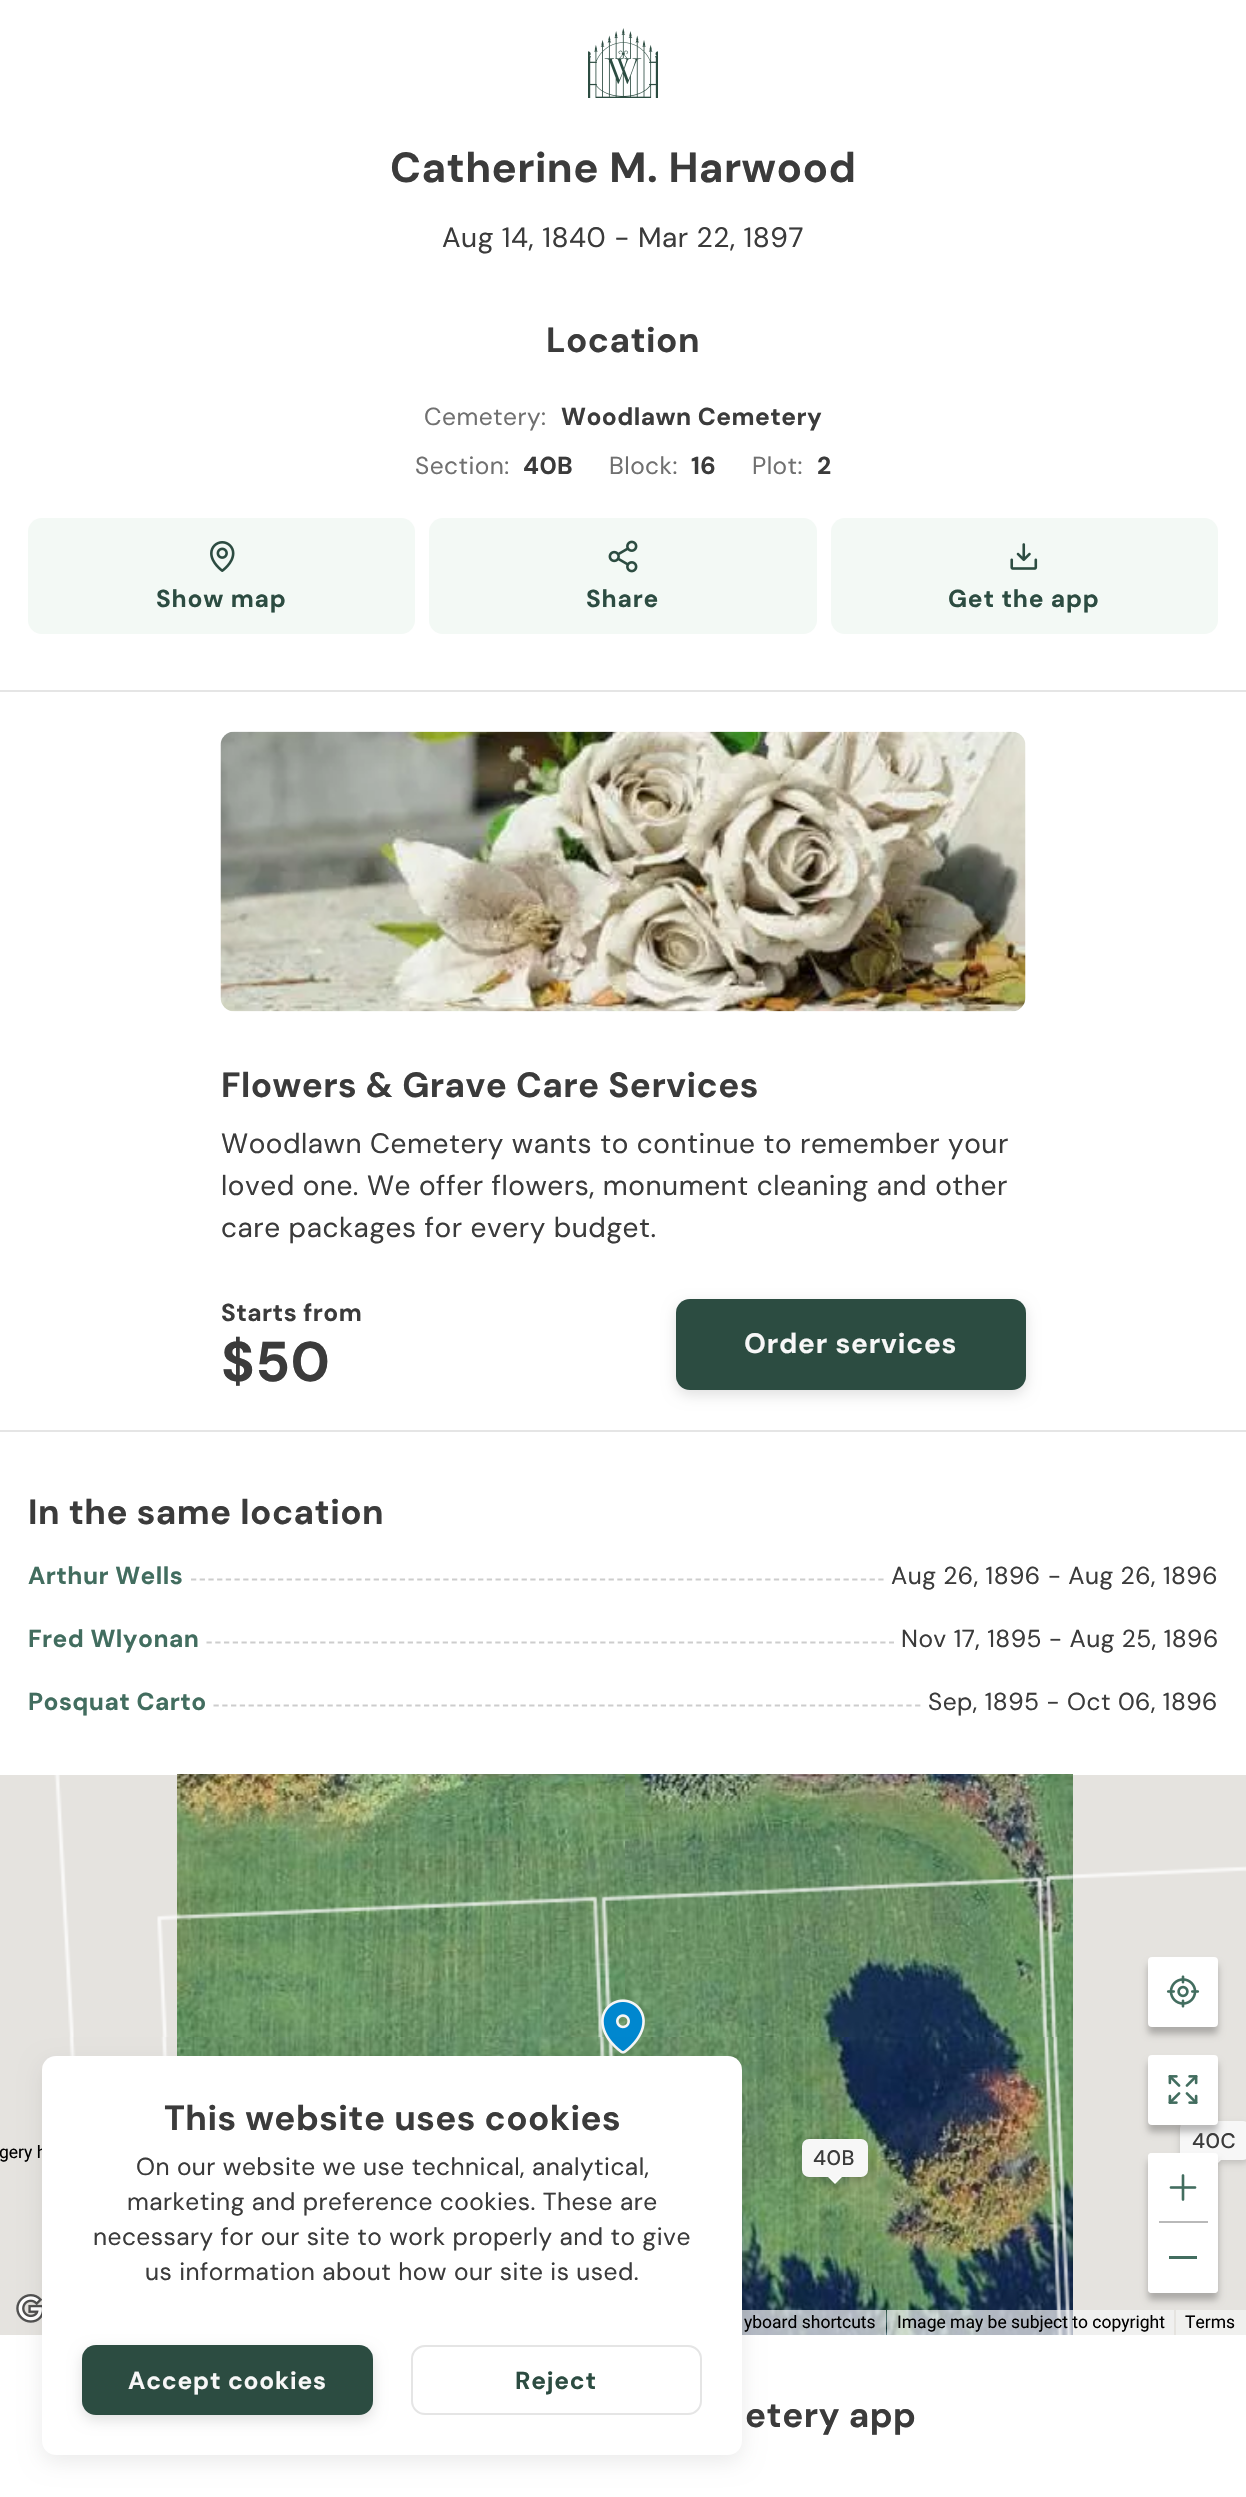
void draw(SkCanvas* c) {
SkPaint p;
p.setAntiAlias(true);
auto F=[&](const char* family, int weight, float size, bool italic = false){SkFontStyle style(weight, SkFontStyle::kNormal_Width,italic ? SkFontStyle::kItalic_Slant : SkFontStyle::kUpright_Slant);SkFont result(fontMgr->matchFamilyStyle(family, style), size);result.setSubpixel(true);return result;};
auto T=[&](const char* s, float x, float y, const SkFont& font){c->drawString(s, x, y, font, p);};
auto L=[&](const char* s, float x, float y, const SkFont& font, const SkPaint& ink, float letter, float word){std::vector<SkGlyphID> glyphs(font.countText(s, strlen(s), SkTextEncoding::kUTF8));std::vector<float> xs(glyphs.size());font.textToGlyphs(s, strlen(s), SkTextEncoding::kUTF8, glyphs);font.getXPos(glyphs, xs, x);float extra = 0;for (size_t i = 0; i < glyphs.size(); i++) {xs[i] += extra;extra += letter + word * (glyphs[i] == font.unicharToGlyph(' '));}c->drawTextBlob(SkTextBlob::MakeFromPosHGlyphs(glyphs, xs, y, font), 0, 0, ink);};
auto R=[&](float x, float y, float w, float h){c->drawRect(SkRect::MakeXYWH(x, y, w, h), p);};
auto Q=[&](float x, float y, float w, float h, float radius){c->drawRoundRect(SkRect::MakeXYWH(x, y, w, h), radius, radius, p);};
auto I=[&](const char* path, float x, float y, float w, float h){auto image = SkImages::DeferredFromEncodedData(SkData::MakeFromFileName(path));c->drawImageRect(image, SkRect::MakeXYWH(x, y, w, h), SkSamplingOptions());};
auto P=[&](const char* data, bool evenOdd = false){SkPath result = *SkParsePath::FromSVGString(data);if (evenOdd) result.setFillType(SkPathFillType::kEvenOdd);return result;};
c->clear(0xffffffff);
I("1.png",588,28,70,70);
auto f1 = F("DM Sans",700,42);
p.setColor(0xff3b3b3b);
L("Catherine M. Harwood",390,182,f1,p,.45,0);
auto f2 = F("DM Sans",400,28);
L("Aug 14, 1840 - Mar 22, 1897",442,247,f2,p,.53,0);
auto f3 = F("DM Sans",700,35);
L("Location",546,352,f3,p,.45,0);
auto f4 = F("DM Sans",400,24.5);
p.setColor(0xff707070);
L("Cemetery:",424,425,f4,p,.45,0);
auto f5 = F("DM Sans",700,24.5);
p.setColor(0xff3b3b3b);
L("Woodlawn Cemetery",561,425,f5,p,.45,0);
p.setColor(0xff707070);
L("Section:",415,474,f4,p,.45,0);
p.setColor(0xff3b3b3b);
L("40B",523,474,f5,p,.45,0);
p.setColor(0xff707070);
L("Block:",609,474,f4,p,.45,0);
p.setColor(0xff3b3b3b);
L("16",691,474,f5,p,.45,0);
p.setColor(0xff707070);
L("Plot:",752,474,f4,p,.45,0);
p.setColor(0xff3b3b3b);
L("2",817,474,f5,p,.45,0);
p.setColor(0xfff3f9f5);
Q(28,518,387,116,14);
I("2.png",210,541,25,31);
p.setColor(0xff2c4c41);
L("Show map",156,607,f5,p,.8,0);
p.setColor(0xfff3f9f5);
Q(429,518,388,116,14);
I("3.png",608,540,30,33);
p.setColor(0xff2c4c41);
L("Share",586,607,f5,p,.8,0);
p.setColor(0xfff3f9f5);
Q(831,518,387,116,14);
I("4.png",1010,543,28,27);
p.setColor(0xff2c4c41);
L("Get the app",948,607,f5,p,.8,0);
p.setColor(0xffe5e5e5);
R(0,690,1246,2);
R(0,1430,1246,2);
I("5.png",220,731,806,281);
p.setColor(0xff3b3b3b);
L("Flowers & Grave Care Services",221,1097,f3,p,.45,0);
L("Woodlawn Cemetery wants to continue to remember your",221,1153,f2,p,.53,0);
L("loved one. We offer flowers, monument cleaning and other",221,1195,f2,p,.53,0);
L("care packages for every budget.",221,1237,f2,p,.53,0);
L("Starts from",221,1321,f5,p,.45,0);
auto f6 = F("DM Sans",700,56);
L("$50",221,1381,f6,p,.45,0);
p.setColor(0x1f000000);
p.setMaskFilter(SkMaskFilter::MakeBlur(kNormal_SkBlurStyle, 7));
c->drawRoundRect(SkRect::MakeXYWH(676,1304,350,91),14,14,p);
p.setMaskFilter(nullptr);
p.setColor(0xff2c4c41);
Q(676,1299,350,91,14);
auto f7 = F("DM Sans",700,28);
p.setColor(0xfff7f7f7);
L("Order services",744,1353,f7,p,.8,0);
p.setColor(0xff3b3b3b);
L("In the same location",28,1524,f3,p,.45,0);
p.setColor(0xff426d5f);
L("Arthur Wells",28,1584,f5,p,.45,0);
p.setStroke(true);
p.setStrokeWidth(1.8);
p.setColor(0xffcdcdcd);
p.setPathEffect(SkDashPathEffect::Make({{5.25f,3.45f}}, 0));
c->drawPath(P("M191 1579.5h693"),p);
p.setPathEffect(nullptr);
p.setStroke(false);
p.setColor(0xff3b3b3b);
L("Aug 26, 1896 - Aug 26, 1896",891,1584,f4,p,.45,0);
p.setColor(0xff426d5f);
L("Fred Wlyonan",28,1647,f5,p,.45,0);
p.setStroke(true);
p.setColor(0xffcdcdcd);
p.setPathEffect(SkDashPathEffect::Make({{5.25f,3.5f}}, 0));
c->drawPath(P("M206.5 1642.5h687.5"),p);
p.setPathEffect(nullptr);
p.setStroke(false);
p.setColor(0xff3b3b3b);
L("Nov 17, 1895 - Aug 25, 1896",901,1647,f4,p,.45,0);
p.setColor(0xff426d5f);
L("Posquat Carto",28,1710,f5,p,.45,0);
p.setStroke(true);
p.setColor(0xffcdcdcd);
p.setPathEffect(SkDashPathEffect::Make({{5.25f,3.52f}}, 0));
c->drawPath(P("M213.5 1705.5h707"),p);
p.setPathEffect(nullptr);
p.setStroke(false);
p.setColor(0xff3b3b3b);
L("Sep, 1895 - Oct 06, 1896",928,1710,f4,p,.45,0);
p.setColor(0xffe5e3df);
R(0,1775,1246,560);
p.setColor(0x40000000);
p.setMaskFilter(SkMaskFilter::MakeBlur(kNormal_SkBlurStyle, 3.5));
c->drawRoundRect(SkRect::MakeXYWH(1148,1964,70,70),4,4,p);
p.setMaskFilter(nullptr);
p.setColor(0xffffffff);
Q(1148,1957,70,70,4);
I("6.png",1166,1975,34,33);
p.setColor(0x29000000);
p.setMaskFilter(SkMaskFilter::MakeBlur(kNormal_SkBlurStyle, 3.5));
c->drawRoundRect(SkRect::MakeXYWH(1180,2125,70,38),7,7,p);
p.setMaskFilter(nullptr);
p.setColor(0xfff7f7f7);
Q(1180,2121,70,39,7);
p.setColor(0x40000000);
p.setMaskFilter(SkMaskFilter::MakeBlur(kNormal_SkBlurStyle, 3.5));
c->drawRoundRect(SkRect::MakeXYWH(1148,2062,70,70),4,4,p);
p.setMaskFilter(nullptr);
p.setColor(0xffffffff);
Q(1148,2055,70,70,4);
I("7.png",1168,2075,30,29);
c->drawPath(P("M1207.5 2159.5h14l-7 7z"),p);
p.setColor(0xfff7f7f7);
c->drawPath(P("M1209 2159.5h11l-5.5 5.5z"),p);
p.setColor(0x40000000);
p.setMaskFilter(SkMaskFilter::MakeBlur(kNormal_SkBlurStyle, 3.5));
c->drawRoundRect(SkRect::MakeXYWH(1148,2160,70,140),4,4,p);
p.setMaskFilter(nullptr);
p.setColor(0xffffffff);
Q(1148,2153,70,140,4);
Q(1148,2153,70,70,4);
I("8.png",1169,2174,28,27);
p.setColor(0xffb9b9b9);
R(1159,2221,49,2);
p.setColor(0xffffffff);
Q(1148,2223,70,70,4);
p.setColor(0xff426d5f);
R(1169,2256,28,3);
I("16.png",177,1774,448,263);
I("11.png",176,1895,449,142);
I("9.png",54,1775,123,262);
I("17.png",625,1774,448,263);
I("12.png",624,1874,449,163);
I("10.png",1072,1866,174,13);
I("13.png",69,2037,100,19);
I("18.png",177,2037,448,19);
I("14.png",598,2037,17,19);
I("19.png",625,2037,448,298);
I("15.png",1042,2037,30,298);
auto f8 = F("Roboto",400,17.5);
p.setColor(0xff000000);
T("gery h",-1,2158,f8);
I("20.png",601,1999,44,55);
auto f9 = F("DM Sans",500,21);
p.setColor(0xff3b3b3b);
L("40C",1192,2148,f9,p,.5,0);
p.setColor(0x29000000);
p.setMaskFilter(SkMaskFilter::MakeBlur(kNormal_SkBlurStyle, 3.5));
c->drawRoundRect(SkRect::MakeXYWH(802,2142,66,39),7,7,p);
p.setMaskFilter(nullptr);
p.setColor(0xfff7f7f7);
Q(802,2139,66,38,7);
p.setColor(0xff3b3b3b);
L("40B",813,2165,f9,p,.5,0);
p.setColor(0xffffffff);
c->drawPath(P("M828 2177h14l-7 7z"),p);
p.setColor(0xfff7f7f7);
c->drawPath(P("M829.5 2177h10.5l-5 5z"),p);
I("21.png",16,2294,26,29);
p.setColor(0xb3f5f5f5);
R(742,2310,144,25);
p.setColor(0xff000000);
T("yboard shortcuts",744,2328,f8);
p.setColor(0xb3f5f5f5);
R(887,2310,287,25);
p.setColor(0xff000000);
T("Image may be subject to copyright",897,2328,f8);
p.setColor(0xfff0f0ee);
R(1176,2310,70,25);
p.setColor(0xff000000);
T("Terms",1185,2328,f8);
p.setColor(0xff3b3b3b);
L("etery app",745,2427,f3,p,.45,0);
p.setColor(0x14000000);
p.setMaskFilter(SkMaskFilter::MakeBlur(kNormal_SkBlurStyle, 10.5));
c->drawRoundRect(SkRect::MakeXYWH(42,2063,700,399),14,14,p);
p.setMaskFilter(nullptr);
p.setColor(0xffffffff);
Q(42,2056,700,399,14);
p.setColor(0xff3b3b3b);
L("This website uses cookies",164,2130,f3,p,.45,0);
L("On our website we use technical, analytical,",136,2175,f4,p,.45,0);
L("marketing and preference cookies. These are",127,2210,f4,p,.45,0);
L("necessary for our site to work properly and to give",93,2245,f4,p,.45,0);
L("us information about how our site is used.",145,2280,f4,p,.45,0);
p.setColor(0x1f000000);
p.setMaskFilter(SkMaskFilter::MakeBlur(kNormal_SkBlurStyle, 7));
c->drawRoundRect(SkRect::MakeXYWH(82,2350,291,70),14,14,p);
p.setMaskFilter(nullptr);
p.setColor(0xff2c4c41);
Q(82,2345,291,70,14);
p.setColor(0xfff7f7f7);
L("Accept cookies",128,2389,f5,p,.8,0);
p.setStroke(true);
p.setStrokeWidth(2);
p.setColor(0xffe5e5e5);
c->drawRoundRect(SkRect::MakeXYWH(412,2346,289,68),13,13,p);
p.setStroke(false);
p.setColor(0xff2c4c41);
L("Reject",515,2389,f5,p,.8,0);
}
